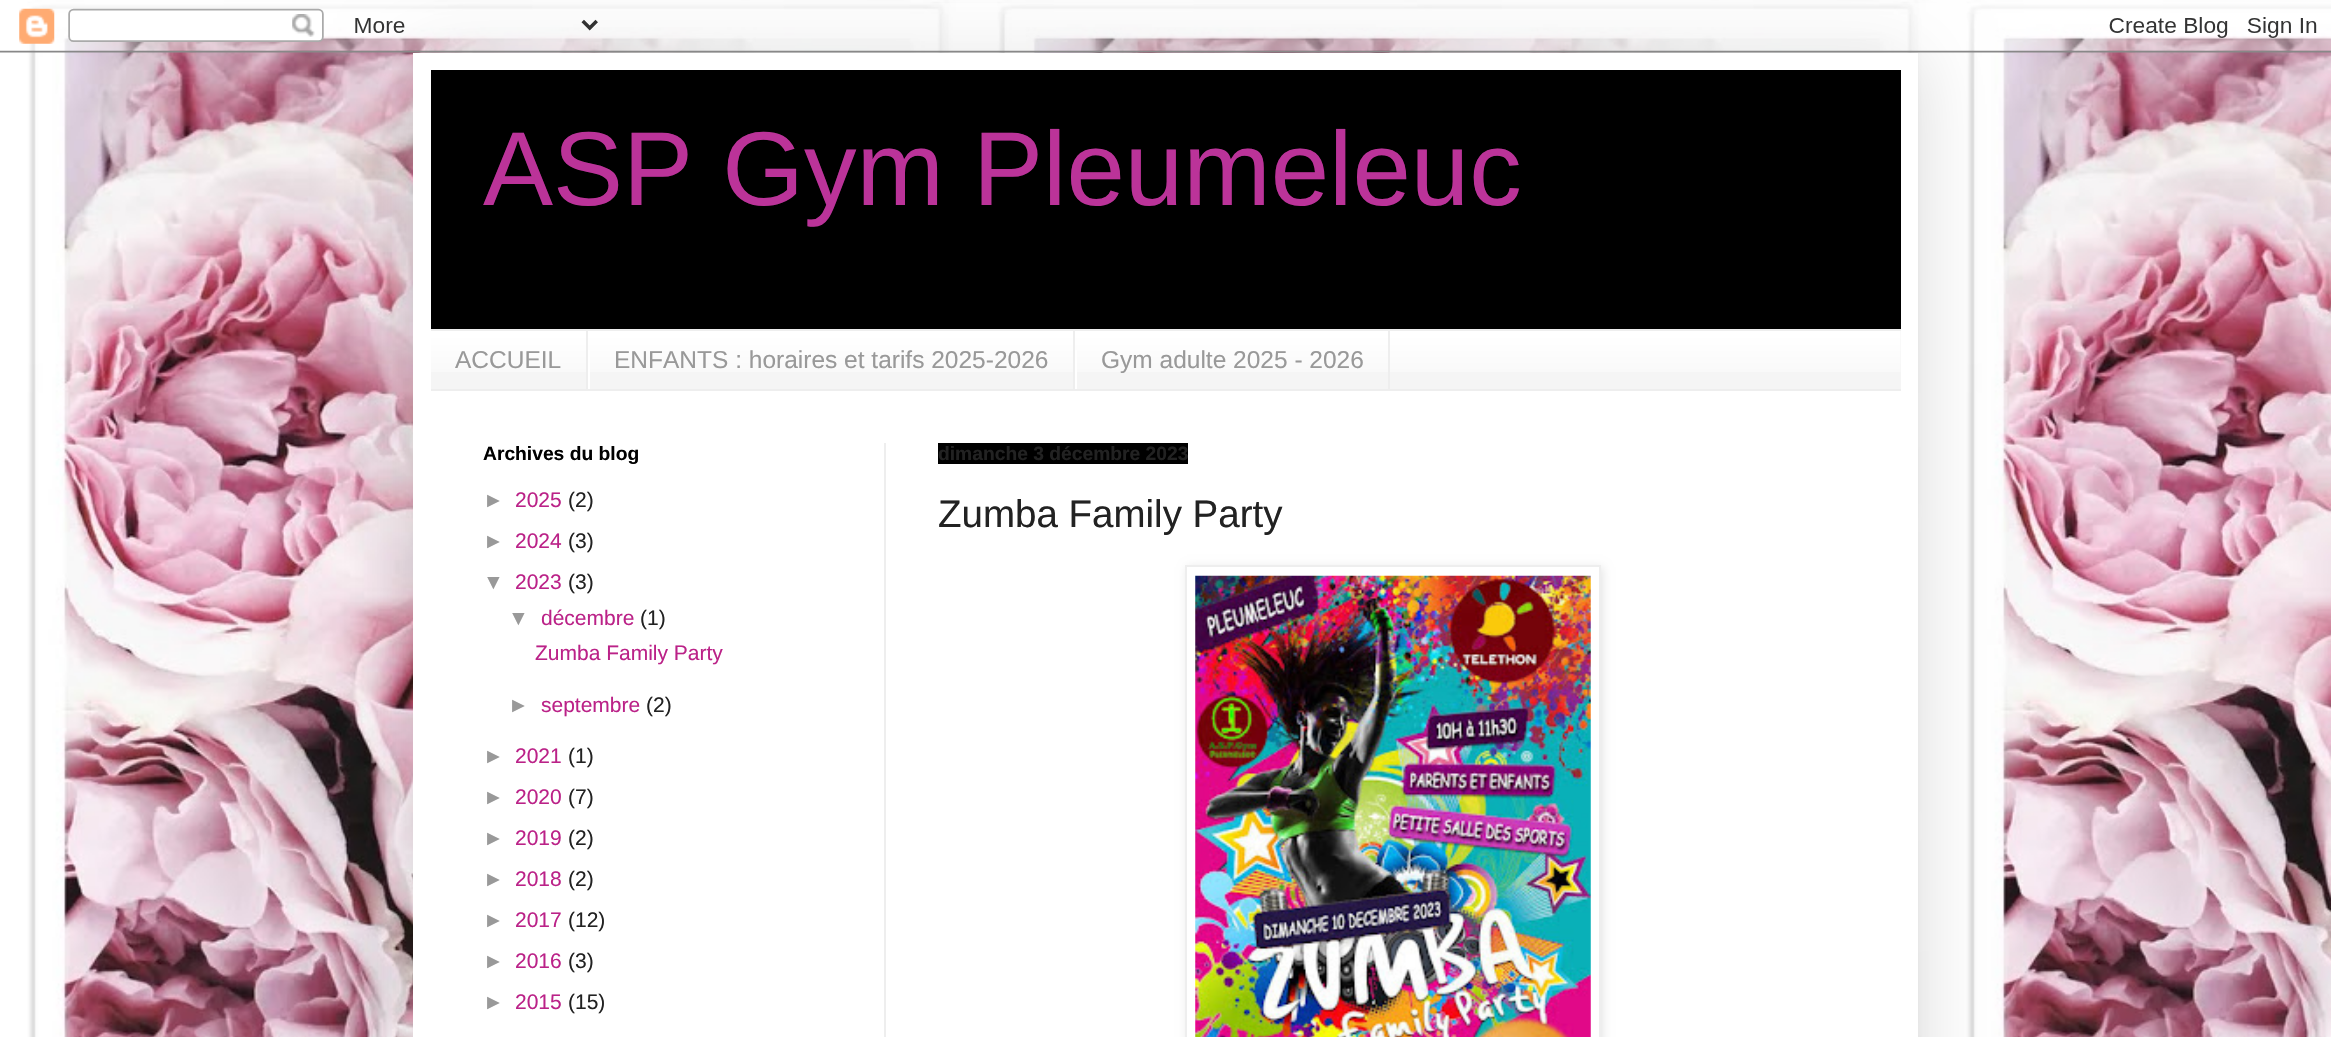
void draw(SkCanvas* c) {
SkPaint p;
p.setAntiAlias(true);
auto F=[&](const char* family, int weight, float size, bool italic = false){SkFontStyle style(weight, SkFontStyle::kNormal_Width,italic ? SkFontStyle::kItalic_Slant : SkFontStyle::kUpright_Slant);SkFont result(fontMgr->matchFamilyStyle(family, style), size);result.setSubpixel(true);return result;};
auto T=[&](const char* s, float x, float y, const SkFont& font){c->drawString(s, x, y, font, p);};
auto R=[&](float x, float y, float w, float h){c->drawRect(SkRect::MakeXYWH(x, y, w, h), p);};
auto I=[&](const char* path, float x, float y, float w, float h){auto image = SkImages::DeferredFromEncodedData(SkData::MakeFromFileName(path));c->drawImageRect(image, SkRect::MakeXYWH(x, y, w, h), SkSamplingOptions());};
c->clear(0xffffffff);
I("1.png",0,0,2331,1037);
p.setColor(0x26000000);
p.setMaskFilter(SkMaskFilter::MakeBlur(kNormal_SkBlurStyle, 35));
c->drawRect(SkRect::MakeXYWH(413,53,1505,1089),p);
p.setMaskFilter(nullptr);
I("2.png",0,3,2331,50);
p.setColor(0xffffffff);
R(413,53,1505,984);
p.setColor(0xff000000);
R(431,70,1470,259);
auto f1 = F("Liberation Sans",400,105);
p.setColor(0xffbb3399);
T("ASP Gym Pleumeleuc",483,205,f1);
p.setColor(0xfff5f5f5);
R(431,331,1470,58);
I("3.png",431,331,1470,41);
p.setColor(0xffeeeeee);
R(431,329,1470,2);
R(431,389,1470,2);
R(586,331,2,58);
auto f2 = F("Liberation Sans",400,24.5);
p.setColor(0xff999999);
T("ACCUEIL",455,368,f2);
p.setColor(0xffeeeeee);
R(1073,331,2,58);
p.setColor(0xffffffff);
R(588,350,2,39);
p.setColor(0xff999999);
T("ENFANTS : horaires et tarifs 2025-2026",614,368,f2);
p.setColor(0xffeeeeee);
R(1388,331,2,58);
p.setColor(0xffffffff);
R(1075,350,2,39);
p.setColor(0xff999999);
T("Gym adulte 2025 - 2026",1101,368,f2);
p.setColor(0xffeeeeee);
R(884,443,2,594);
auto f3 = F("Liberation Sans",700,19.25);
p.setColor(0xff000000);
T("Archives du blog",483,460,f3);
auto f4 = F("Liberation Sans",400,21);
p.setColor(0xff999999);
T("►",483,507,f4);
p.setColor(0xffbb2288);
T("2025",515,507,f4);
p.setColor(0xff222222);
T("(2)",568,507,f4);
p.setColor(0xff999999);
T("►",483,548,f4);
p.setColor(0xffbb2288);
T("2024",515,548,f4);
p.setColor(0xff222222);
T("(3)",568,548,f4);
p.setColor(0xff999999);
T("▼",483,589,f4);
p.setColor(0xffbb2288);
T("2023",515,589,f4);
p.setColor(0xff222222);
T("(3)",568,589,f4);
p.setColor(0xff999999);
T("▼",508,625,f4);
p.setColor(0xffbb2288);
T("décembre",541,625,f4);
p.setColor(0xff222222);
T("(1)",640,625,f4);
p.setColor(0xffbb2288);
T("Zumba Family Party",535,660,f4);
p.setColor(0xff999999);
T("►",508,712,f4);
p.setColor(0xffbb2288);
T("septembre",541,712,f4);
p.setColor(0xff222222);
T("(2)",646,712,f4);
p.setColor(0xff999999);
T("►",483,763,f4);
p.setColor(0xffbb2288);
T("2021",515,763,f4);
p.setColor(0xff222222);
T("(1)",568,763,f4);
p.setColor(0xff999999);
T("►",483,804,f4);
p.setColor(0xffbb2288);
T("2020",515,804,f4);
p.setColor(0xff222222);
T("(7)",568,804,f4);
p.setColor(0xff999999);
T("►",483,845,f4);
p.setColor(0xffbb2288);
T("2019",515,845,f4);
p.setColor(0xff222222);
T("(2)",568,845,f4);
p.setColor(0xff999999);
T("►",483,886,f4);
p.setColor(0xffbb2288);
T("2018",515,886,f4);
p.setColor(0xff222222);
T("(2)",568,886,f4);
p.setColor(0xff999999);
T("►",483,927,f4);
p.setColor(0xffbb2288);
T("2017",515,927,f4);
p.setColor(0xff222222);
T("(12)",568,927,f4);
p.setColor(0xff999999);
T("►",483,968,f4);
p.setColor(0xffbb2288);
T("2016",515,968,f4);
p.setColor(0xff222222);
T("(3)",568,968,f4);
p.setColor(0xff999999);
T("►",483,1009,f4);
p.setColor(0xffbb2288);
T("2015",515,1009,f4);
p.setColor(0xff222222);
T("(15)",568,1009,f4);
p.setColor(0xff000000);
R(938,443,250,21);
p.setColor(0xff222222);
T("dimanche 3 décembre 2023",938,460,f3);
auto f5 = F("Liberation Sans",400,38.5);
T("Zumba Family Party",938,527,f5);
p.setColor(0x1a000000);
p.setMaskFilter(SkMaskFilter::MakeBlur(kNormal_SkBlurStyle, 4.5));
c->drawRect(SkRect::MakeXYWH(1187,567,416,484),p);
p.setMaskFilter(nullptr);
p.setColor(0xffffffff);
c->drawRect(SkRect::MakeXYWH(1186,566,414,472),p);
p.setStroke(true);
p.setStrokeWidth(2);
p.setColor(0xffeeeeee);
c->drawRect(SkRect::MakeXYWH(1186,566,414,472),p);
I("4.png",1195,575,396,462);
}
